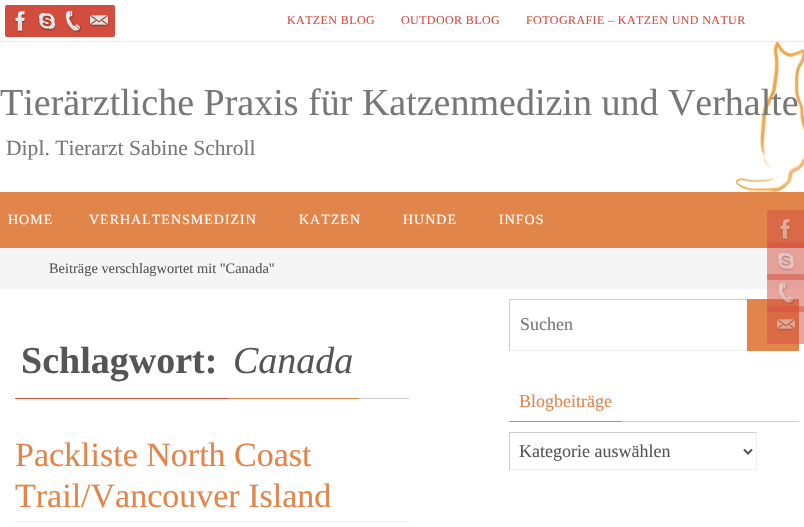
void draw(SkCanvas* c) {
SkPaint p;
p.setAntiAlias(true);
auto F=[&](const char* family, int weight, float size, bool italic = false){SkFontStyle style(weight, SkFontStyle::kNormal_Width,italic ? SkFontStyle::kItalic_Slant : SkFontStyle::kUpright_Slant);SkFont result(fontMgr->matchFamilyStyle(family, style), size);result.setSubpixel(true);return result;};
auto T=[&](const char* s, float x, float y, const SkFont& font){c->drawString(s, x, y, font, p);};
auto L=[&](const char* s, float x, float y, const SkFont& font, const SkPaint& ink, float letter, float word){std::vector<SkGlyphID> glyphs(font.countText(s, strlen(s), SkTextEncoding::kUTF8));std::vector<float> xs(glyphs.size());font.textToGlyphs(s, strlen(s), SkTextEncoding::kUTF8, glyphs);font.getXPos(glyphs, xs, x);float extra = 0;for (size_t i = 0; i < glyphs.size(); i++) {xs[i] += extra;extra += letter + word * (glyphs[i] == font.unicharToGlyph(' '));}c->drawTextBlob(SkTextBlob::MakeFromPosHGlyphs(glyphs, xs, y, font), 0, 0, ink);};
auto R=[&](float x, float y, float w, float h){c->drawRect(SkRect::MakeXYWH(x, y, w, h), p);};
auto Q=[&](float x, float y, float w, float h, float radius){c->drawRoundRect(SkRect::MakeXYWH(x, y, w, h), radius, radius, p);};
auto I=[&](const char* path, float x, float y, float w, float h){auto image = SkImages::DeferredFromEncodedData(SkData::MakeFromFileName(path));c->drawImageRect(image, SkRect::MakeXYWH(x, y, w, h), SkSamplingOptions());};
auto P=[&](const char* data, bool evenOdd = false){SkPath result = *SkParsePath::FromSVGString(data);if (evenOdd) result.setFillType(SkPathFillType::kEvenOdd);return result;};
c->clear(0xffffffff);
p.setColor(0xffebebeb);
R(0,41,804,1);
p.setColor(0xffd34d3f);
Q(5,5,32,32,2);
I("1.png",14,11,12,22);
Q(31,5,32,32,2);
I("2.png",38,13,18,18);
Q(57,5,32,32,2);
I("3.png",66,11,16,22);
Q(83,5,32,32,2);
I("4.png",89,15,20,12);
auto f1 = F("Liberation Serif",400,12);
L("KATZEN BLOG",287,24,f1,p,.4,0);
L("OUTDOOR BLOG",401,24,f1,p,.4,0);
L("FOTOGRAFIE – KATZEN UND NATUR",526,24,f1,p,.4,0);
I("5.png",735,42,69,150);
auto f2 = F("Liberation Serif",400,38);
p.setColor(0xff777777);
T("Tierärztliche Praxis für Katzenmedizin und Verhalte",0,115,f2);
auto f3 = F("Liberation Serif",400,21.6);
T("Dipl. Tierarzt Sabine Schroll",6,155,f3);
p.setColor(0xffe1854b);
R(0,192,804,56);
auto f4 = F("Liberation Serif",400,14);
p.setColor(0xffffffff);
L("HOME",8,224,f4,p,1,0);
L("VERHALTENSMEDIZIN",89,224,f4,p,1,0);
L("KATZEN",299,224,f4,p,1,0);
L("HUNDE",403,224,f4,p,1,0);
L("INFOS",499,224,f4,p,1,0);
p.setColor(0xfff5f5f5);
R(0,248,804,41);
auto f5 = F("Liberation Serif",400,14.4);
p.setColor(0xff555555);
T("Beiträge verschlagwortet mit \"Canada\"",49,273,f5);
p.setColor(0xffda6945);
Q(767,210,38,38,2);
I("6.png",779,219,12,22);
p.setColor(0x80d34d3f);
Q(767,242,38,38,2);
I("7.png",777,253,18,18);
p.setColor(0xffe1854b);
R(747,299,52,52);
p.setColor(0x80d34d3f);
Q(767,274,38,38,2);
I("8.png",779,283,16,22);
Q(767,306,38,38,2);
I("9.png",776,319,20,12);
p.setColor(0xffcccccc);
R(359,398,50,1);
p.setColor(0xffd34d3f);
R(15,398,212,1);
auto f6 = F("Liberation Serif",700,38);
p.setColor(0xff555555);
T("Schlagwort:",21,373,f6);
p.setColor(0xffe1854b);
R(227,398,132,1);
auto f7 = F("Liberation Serif",400,38,true);
p.setColor(0xff555555);
T("Canada",233,373,f7);
auto f8 = F("Liberation Serif",400,34);
p.setColor(0xffe1854b);
T("Packliste North Coast",15,466,f8);
T("Trail/Vancouver Island",15,507,f8);
p.setColor(0xffeeeeee);
R(15,521,394,1);
p.setColor(0xffcccccc);
R(509,299,238,1);
p.setColor(0xffeeeeee);
R(509,350,238,1);
p.setColor(0xffcccccc);
R(509,299,1,52);
auto f9 = F("Liberation Serif",400,18);
p.setColor(0xff777777);
T("Suchen",520,330,f9);
p.setColor(0xffcccccc);
R(622,421,177,1);
p.setColor(0xffe1854b);
R(509,421,113,1);
T("Blogbeiträge",519,407,f9);
p.setColor(0xffcccccc);
R(509,432,248,1);
p.setColor(0xffeeeeee);
R(756,432,1,38);
R(509,469,248,1);
p.setColor(0xffcccccc);
R(509,432,1,38);
p.setStroke(true);
p.setStrokeWidth(2);
p.setColor(0xff555555);
c->drawPath(P("M744 449.5l4 4l4-4"),p);
p.setStroke(false);
T("Kategorie auswählen",519,457,f9);
}
